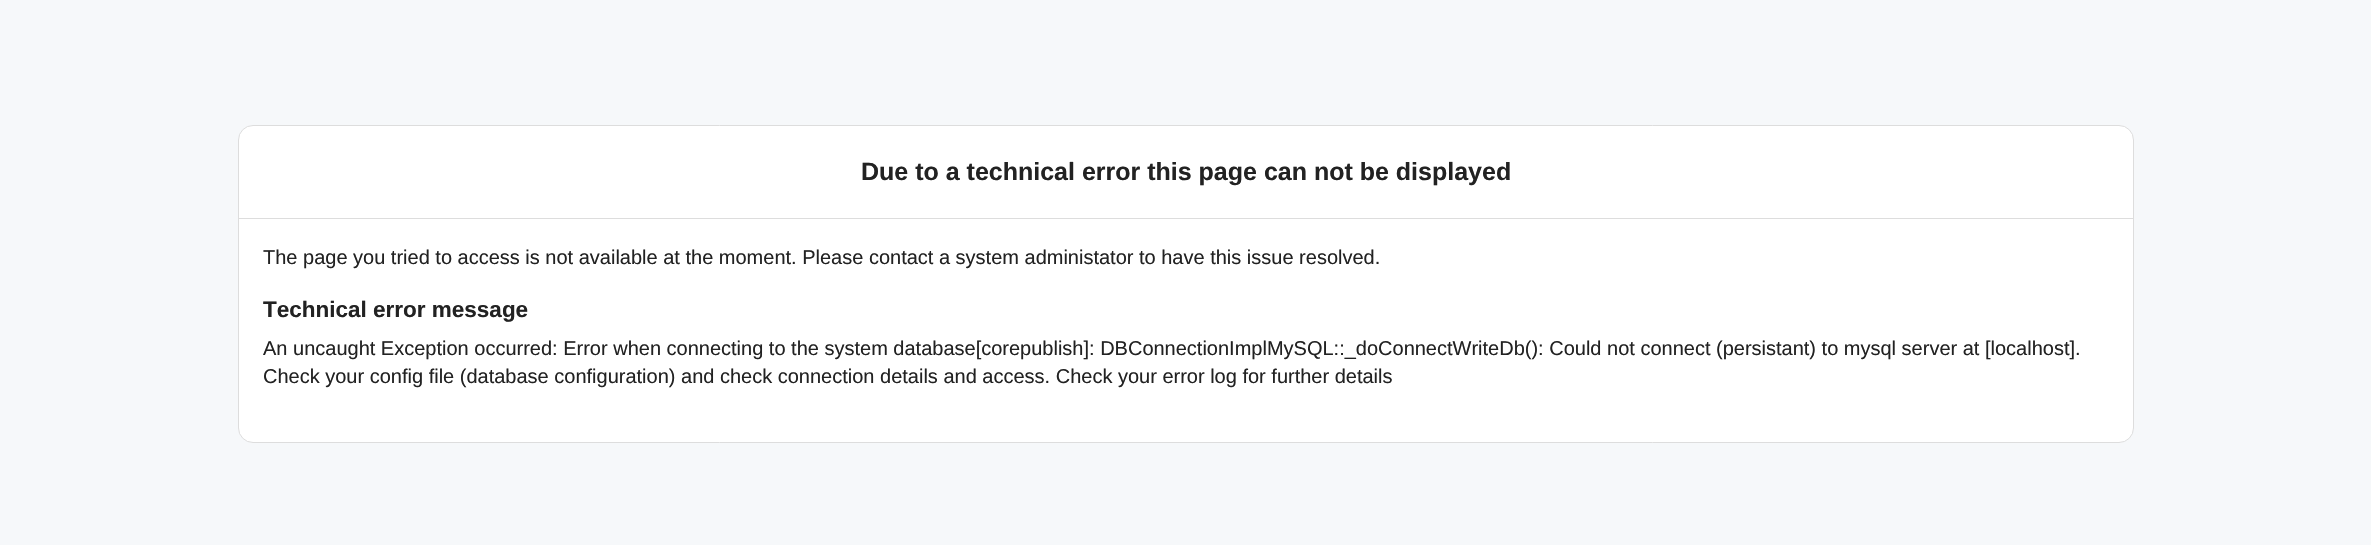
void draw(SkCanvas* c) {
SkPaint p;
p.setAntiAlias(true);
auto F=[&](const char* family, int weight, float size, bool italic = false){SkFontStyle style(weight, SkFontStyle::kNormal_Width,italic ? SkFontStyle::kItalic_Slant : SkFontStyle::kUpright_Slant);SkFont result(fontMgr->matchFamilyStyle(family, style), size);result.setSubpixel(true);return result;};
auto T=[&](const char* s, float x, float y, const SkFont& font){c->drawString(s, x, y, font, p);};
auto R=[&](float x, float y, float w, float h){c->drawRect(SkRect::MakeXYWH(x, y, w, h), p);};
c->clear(0xfff6f8fa);
p.setColor(0xffffffff);
c->drawRoundRect(SkRect::MakeXYWH(238.5,125.5,1895,317),14.5,14.5,p);
p.setStroke(true);
p.setStrokeWidth(1);
p.setColor(0xffdddddd);
c->drawRoundRect(SkRect::MakeXYWH(238.5,125.5,1895,317),14.5,14.5,p);
p.setStroke(false);
R(239,218,1894,1);
auto f1 = F("Liberation Sans",700,25);
p.setColor(0xff222222);
T("Due to a technical error this page can not be displayed",861,180,f1);
auto f2 = F("Liberation Sans",400,20);
T("The page you tried to access is not available at the moment. Please contact a system administator to have this issue resolved.",263,264,f2);
auto f3 = F("Liberation Sans",700,22.5);
T("Technical error message",263,317,f3);
T("An uncaught Exception occurred: Error when connecting to the system database[corepublish]: DBConnectionImplMySQL::_doConnectWriteDb(): Could not connect (persistant) to mysql server at [localhost].",263,355,f2);
T("Check your config file (database configuration) and check connection details and access. Check your error log for further details",263,383,f2);
}
